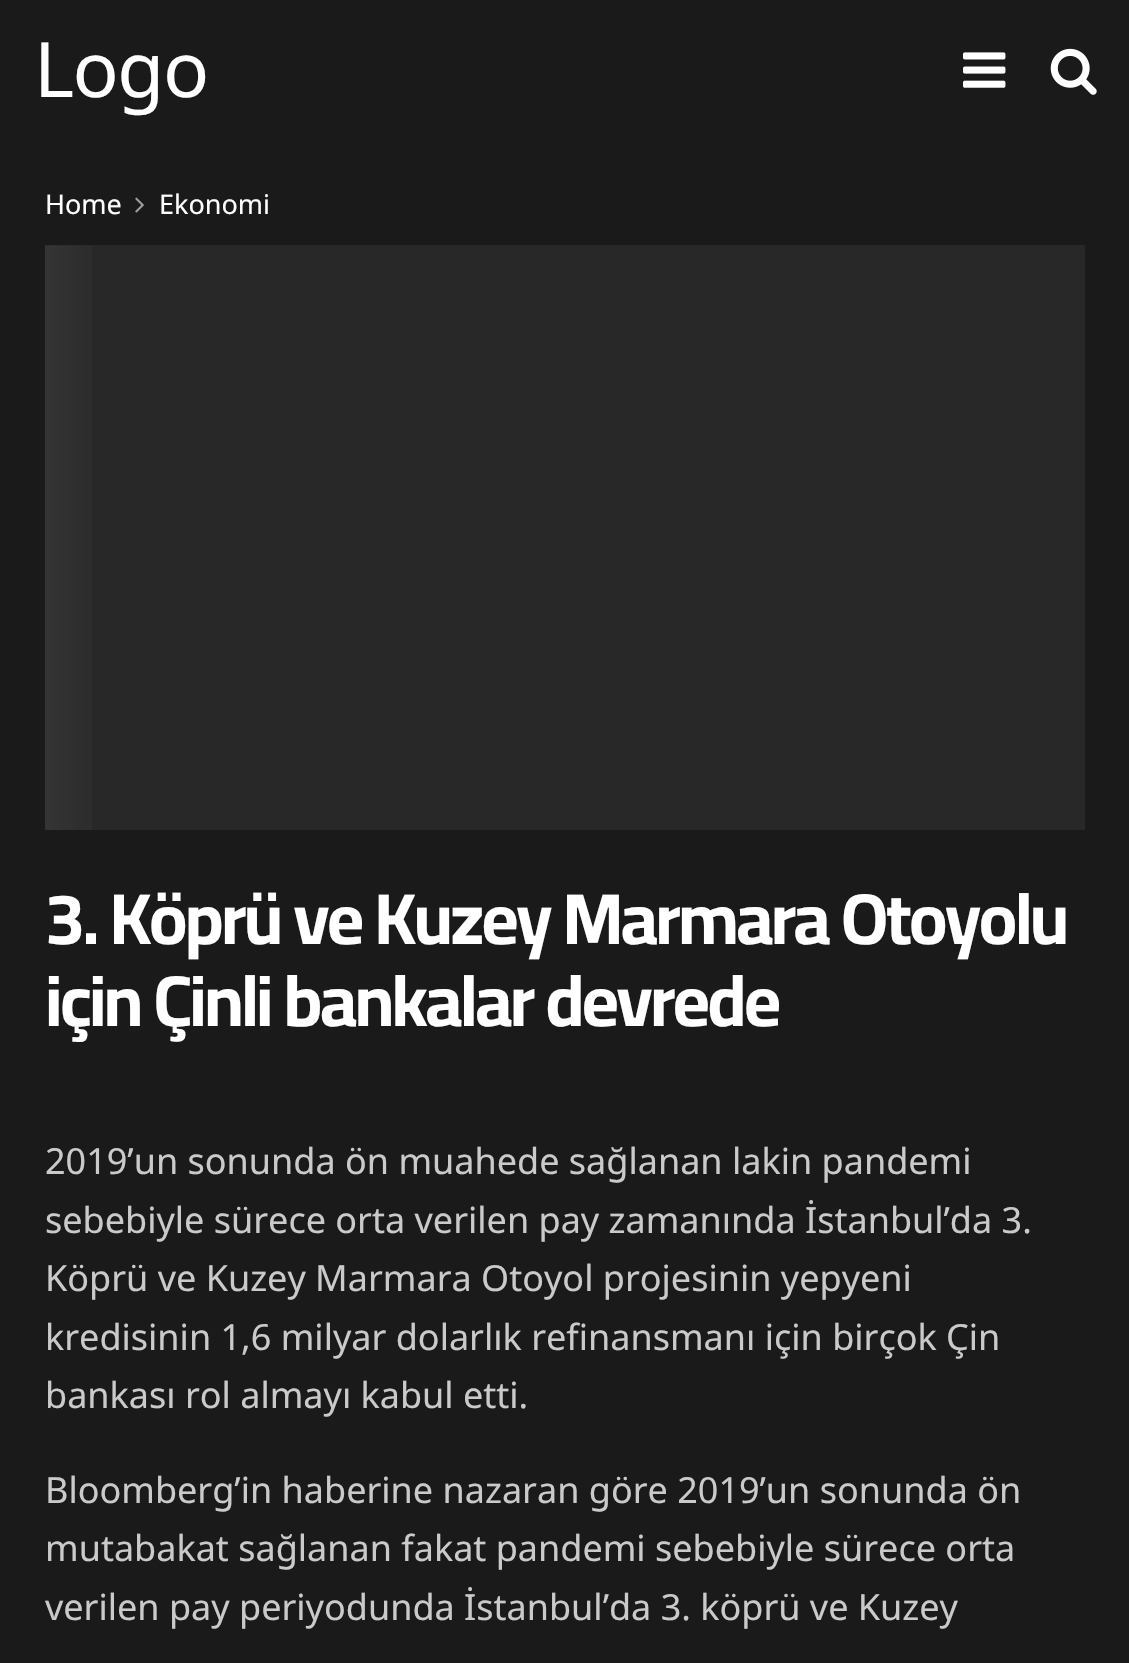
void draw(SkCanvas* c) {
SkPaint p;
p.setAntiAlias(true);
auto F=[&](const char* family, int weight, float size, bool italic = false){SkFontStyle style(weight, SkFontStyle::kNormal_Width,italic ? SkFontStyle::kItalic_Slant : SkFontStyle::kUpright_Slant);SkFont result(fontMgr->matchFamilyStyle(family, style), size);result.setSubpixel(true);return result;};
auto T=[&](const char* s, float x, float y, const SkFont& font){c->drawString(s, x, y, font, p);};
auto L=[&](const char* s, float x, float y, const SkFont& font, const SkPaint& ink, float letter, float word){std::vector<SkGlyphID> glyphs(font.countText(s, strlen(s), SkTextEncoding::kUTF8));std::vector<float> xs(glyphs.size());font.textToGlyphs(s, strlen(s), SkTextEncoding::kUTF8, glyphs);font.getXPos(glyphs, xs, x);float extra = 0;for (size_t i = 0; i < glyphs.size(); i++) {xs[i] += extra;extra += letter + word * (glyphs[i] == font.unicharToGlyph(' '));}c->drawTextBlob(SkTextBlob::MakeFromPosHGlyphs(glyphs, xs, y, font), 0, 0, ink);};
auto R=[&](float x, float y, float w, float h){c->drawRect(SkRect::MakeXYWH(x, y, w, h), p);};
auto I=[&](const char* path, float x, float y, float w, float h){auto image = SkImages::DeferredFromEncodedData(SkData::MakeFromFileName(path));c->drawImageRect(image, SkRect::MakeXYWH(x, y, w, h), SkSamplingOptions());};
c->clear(0xff1a1a1a);
auto f1 = F("Noto Sans",400,76.5);
p.setColor(0xffffffff);
L("Logo",34,97,f1,p,-1.5,0);
I("1.png",963,52,43,36);
I("2.png",1050,48,47,47);
auto f2 = F("Noto Sans",400,27);
T("Home",45,214,f2);
I("3.png",135,197,9,16);
T("Ekonomi",159,214,f2);
p.setColor(0xff282828);
R(45,245,1040,585);
I("4.png",45,245,47,585);
auto f3 = F("Cairo",700,72);
p.setColor(0xffffffff);
L("3. Köprü ve Kuzey Marmara Otoyolu",45,944,f3,p,-2.9,0);
L("için Çinli bankalar devrede",45,1026,f3,p,-2.9,0);
auto f4 = F("Noto Sans",400,36);
p.setColor(0xffcacaca);
T("2019’un sonunda ön muahede sağlanan lakin pandemi",45,1174,f4);
T("sebebiyle sürece orta verilen pay zamanında İstanbul’da 3.",45,1233,f4);
T("Köprü ve Kuzey Marmara Otoyol projesinin yepyeni",45,1291,f4);
T("kredisinin 1,6 milyar dolarlık refinansmanı için birçok Çin",45,1350,f4);
T("bankası rol almayı kabul etti.",45,1408,f4);
T("Bloomberg’in haberine nazaran göre 2019’un sonunda ön",45,1503,f4);
T("mutabakat sağlanan fakat pandemi sebebiyle sürece orta",45,1561,f4);
T("verilen pay periyodunda İstanbul’da 3. köprü ve Kuzey",45,1620,f4);
}
